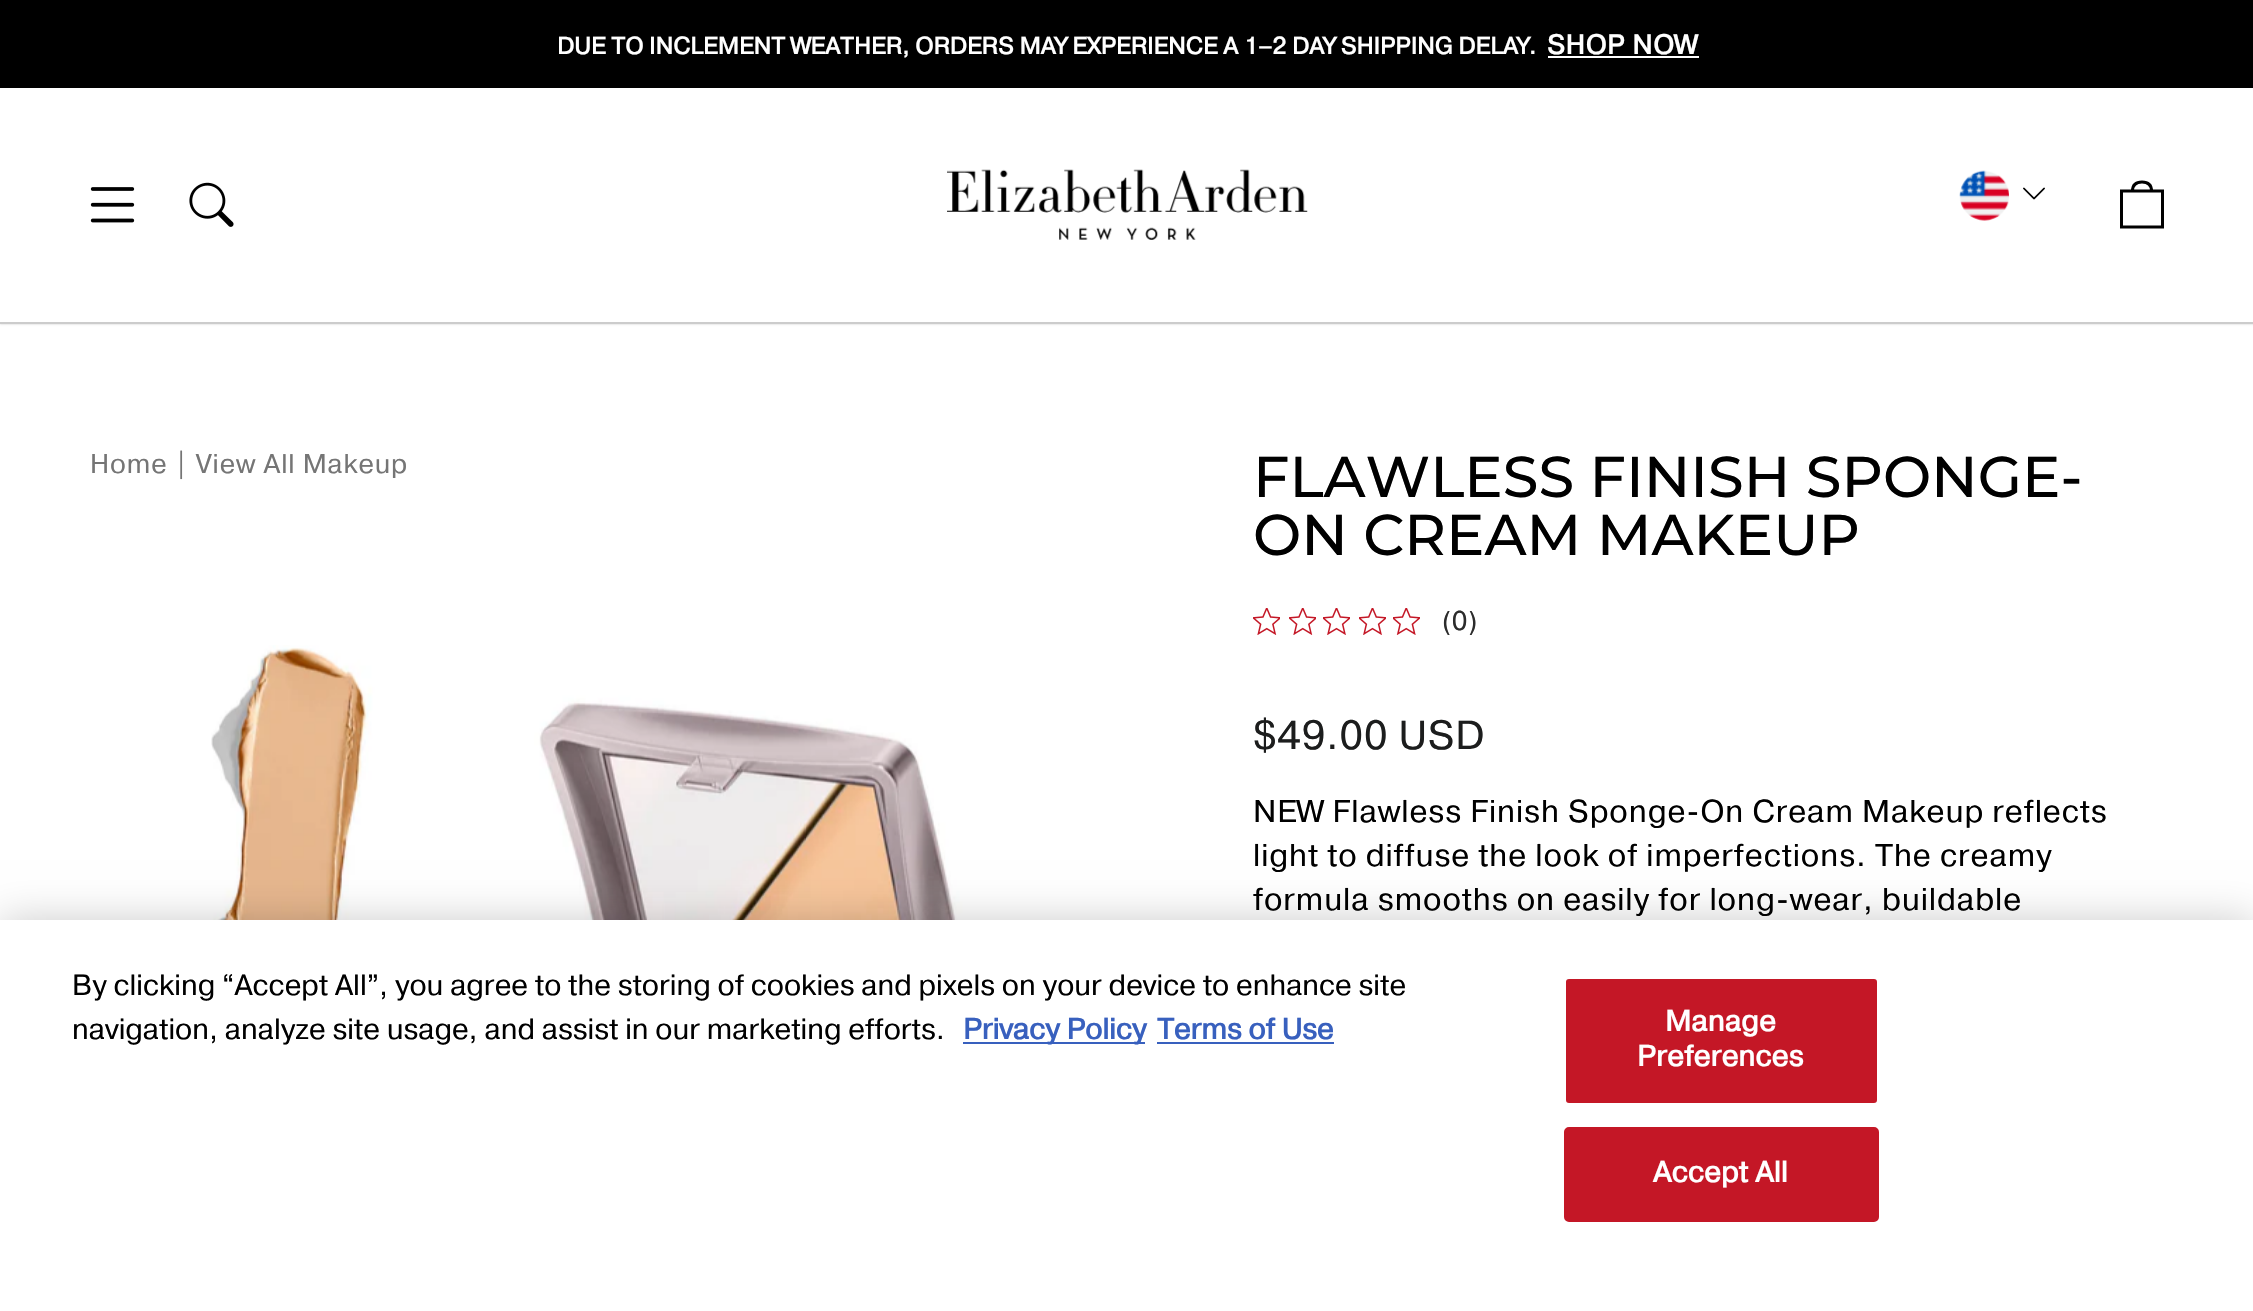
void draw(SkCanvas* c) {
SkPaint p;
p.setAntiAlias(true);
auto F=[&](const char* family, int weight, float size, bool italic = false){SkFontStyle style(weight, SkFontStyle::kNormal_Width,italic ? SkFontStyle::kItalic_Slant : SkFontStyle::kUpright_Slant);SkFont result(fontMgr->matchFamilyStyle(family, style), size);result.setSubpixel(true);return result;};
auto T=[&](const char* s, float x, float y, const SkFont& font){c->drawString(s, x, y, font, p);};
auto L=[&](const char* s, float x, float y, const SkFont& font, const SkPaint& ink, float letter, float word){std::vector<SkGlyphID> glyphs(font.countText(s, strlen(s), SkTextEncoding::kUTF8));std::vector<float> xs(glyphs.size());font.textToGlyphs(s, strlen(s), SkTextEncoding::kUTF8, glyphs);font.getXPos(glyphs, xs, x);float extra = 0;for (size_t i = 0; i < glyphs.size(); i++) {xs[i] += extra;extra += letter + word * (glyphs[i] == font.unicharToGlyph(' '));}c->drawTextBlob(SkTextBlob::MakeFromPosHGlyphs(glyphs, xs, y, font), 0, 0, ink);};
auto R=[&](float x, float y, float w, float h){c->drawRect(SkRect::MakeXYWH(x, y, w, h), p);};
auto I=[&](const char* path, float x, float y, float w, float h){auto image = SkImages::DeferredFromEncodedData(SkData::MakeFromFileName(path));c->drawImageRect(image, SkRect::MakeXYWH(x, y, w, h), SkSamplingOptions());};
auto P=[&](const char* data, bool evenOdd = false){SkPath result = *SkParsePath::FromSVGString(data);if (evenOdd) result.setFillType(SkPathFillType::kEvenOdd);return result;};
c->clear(0xffffffff);
p.setColor(0xff000000);
R(0,0,2253,88);
auto f1 = F("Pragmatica",700,23.6);
p.setColor(0xffffffff);
L("DUE TO INCLEMENT WEATHER, ORDERS MAY EXPERIENCE A 1–2 DAY SHIPPING DELAY.",557,54,f1,p,.25,0);
auto f2 = F("Pragmatica",700,27);
L("SHOP NOW",1547,54,f2,p,.9,0);
R(1548,56,151,2);
c->save();
c->clipPath(P("M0 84h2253v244h-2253zm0 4h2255v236h-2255z",true),true);
p.setColor(0x33000000);
p.setMaskFilter(SkMaskFilter::MakeBlur(kNormal_SkBlurStyle, 1));
c->drawRect(SkRect::MakeXYWH(0,88,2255,236),p);
p.setMaskFilter(nullptr);
c->restore();
p.setColor(0xffcccccc);
R(0,322,2253,2);
I("1.png",90,187,45,36);
I("2.png",189,182,45,45);
I("3.png",947,169,361,71);
I("4.png",1959,170,50,51);
I("5.png",2023,187,22,13);
p.setStroke(true);
p.setStrokeWidth(3);
p.setColor(0xff000000);
c->drawPath(P("M2121.5 191h41v36h-41zm11 0c0-7 4-9 9.5-9c5.5 0 9.5 2 9.5 9"),p);
auto f3 = F("Pragmatica",400,27);
p.setStroke(false);
p.setColor(0xff757575);
L("Home | View All Makeup",90,473,f3,p,.9,0);
I("6.png",211,645,778,275);
auto f4 = F("Montserrat",500,57.4);
p.setColor(0xff000000);
T("FLAWLESS FINISH SPONGE-",1253,497,f4);
T("ON CREAM MAKEUP",1253,555,f4);
I("7.png",1253,608,27,27);
I("7.png",1289,608,27,27);
I("8.png",1323,608,27,27);
I("8.png",1359,608,27,27);
I("9.png",1393,608,27,27);
auto f5 = F("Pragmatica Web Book",400,27);
p.setColor(0xff2c2c2c);
T("(0)",1442,630,f5);
auto f6 = F("Pragmatica",400,40.5);
p.setColor(0xff1c1d1d);
L("$49.00 USD",1253,749,f6,p,.9,0);
auto f7 = F("Pragmatica",400,31.5);
p.setColor(0xff000000);
L("NEW Flawless Finish Sponge-On Cream Makeup reflects",1253,822,f7,p,.9,0);
L("light to diffuse the look of imperfections. The creamy",1253,866,f7,p,.9,0);
L("formula smooths on easily for long-wear, buildable",1253,910,f7,p,.9,0);
p.setColor(0x33000000);
p.setMaskFilter(SkMaskFilter::MakeBlur(kNormal_SkBlurStyle, 20));
c->drawRect(SkRect::MakeXYWH(0,920,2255,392),p);
p.setMaskFilter(nullptr);
p.setColor(0xffffffff);
R(0,920,2253,391);
auto f8 = F("Pragmatica",400,29.25);
p.setColor(0xff000000);
T("By clicking “Accept All”, you agree to the storing of cookies and pixels on your device to enhance site",72,995,f8);
T("navigation, analyze site usage, and assist in our marketing efforts.",72,1039,f8);
p.setColor(0xff3860be);
R(963,1042,182,2);
auto f9 = F("Pragmatica",700,29.25);
T("Privacy Policy",963,1039,f9);
T("Terms of Use",1157,1039,f9);
R(1157,1042,177,2);
p.setColor(0xffc41726);
c->drawRoundRect(SkRect::MakeXYWH(1565,978,313,126),4,4,p);
p.setStroke(true);
p.setStrokeWidth(2);
p.setColor(0xffffffff);
c->drawRoundRect(SkRect::MakeXYWH(1565,978,313,126),4,4,p);
p.setStroke(false);
L("Manage",1665,1031,f9,p,.25,0);
L("Preferences",1637,1066,f9,p,.25,0);
p.setColor(0xffc41726);
c->drawRoundRect(SkRect::MakeXYWH(1565,1128,313,93),4,4,p);
p.setStroke(true);
c->drawRoundRect(SkRect::MakeXYWH(1565,1128,313,93),4,4,p);
p.setStroke(false);
p.setColor(0xffffffff);
L("Accept All",1653,1182,f9,p,.25,0);
}
